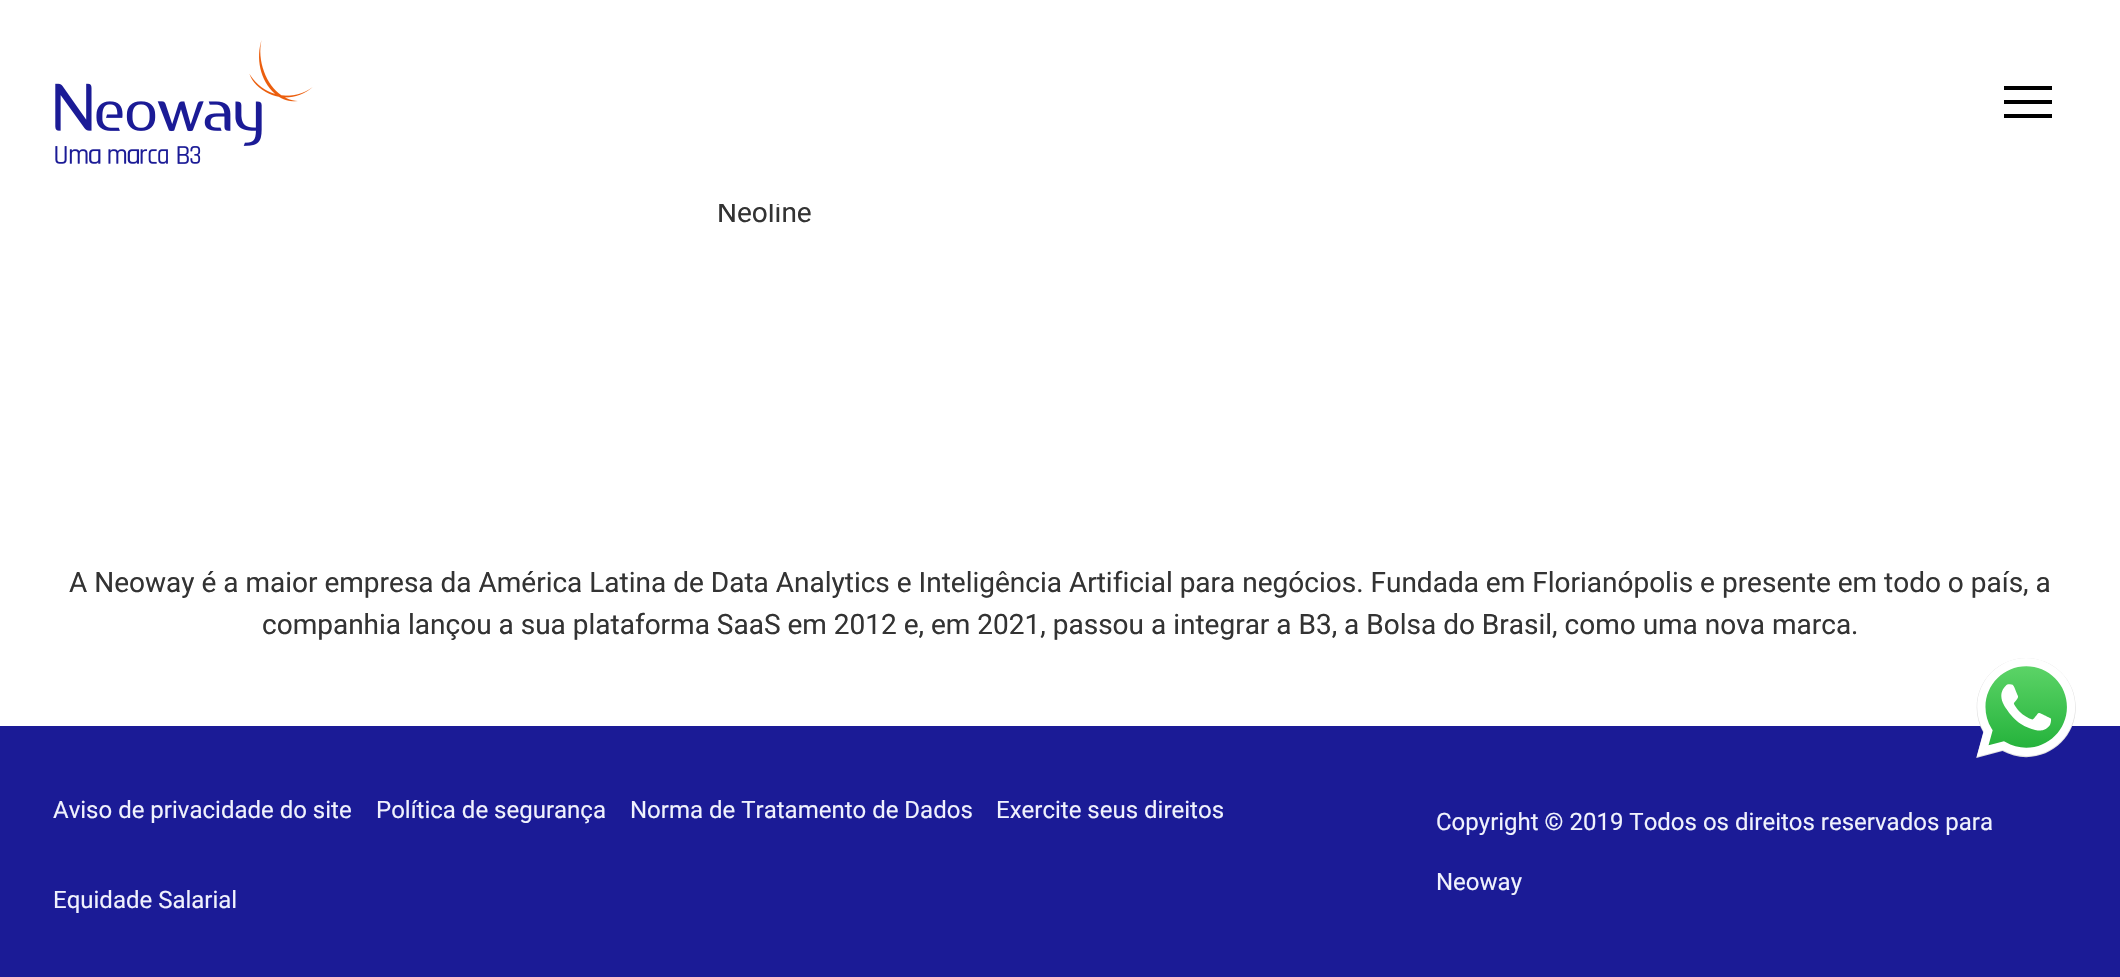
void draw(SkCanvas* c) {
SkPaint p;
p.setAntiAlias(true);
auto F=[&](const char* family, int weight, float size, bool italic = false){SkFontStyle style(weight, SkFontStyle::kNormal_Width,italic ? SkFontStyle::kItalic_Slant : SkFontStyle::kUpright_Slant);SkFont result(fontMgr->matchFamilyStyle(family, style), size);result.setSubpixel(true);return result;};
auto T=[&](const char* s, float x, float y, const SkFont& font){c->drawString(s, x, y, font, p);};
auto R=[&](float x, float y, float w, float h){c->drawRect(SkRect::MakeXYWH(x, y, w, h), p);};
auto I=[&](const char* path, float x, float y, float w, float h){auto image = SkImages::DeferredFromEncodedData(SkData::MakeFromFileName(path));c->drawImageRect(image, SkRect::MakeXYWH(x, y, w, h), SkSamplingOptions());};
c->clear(0xffffffff);
auto f1 = F("Roboto",400,28);
p.setColor(0xff333333);
T("Neoline",717,222,f1);
p.setColor(0xffffffff);
R(719,201,61,3);
I("1.png",55,40,258,124);
p.setColor(0xff000000);
R(2004,86,48,4);
R(2004,114,48,4);
R(2004,100,48,4);
p.setColor(0xff333333);
T("A Neoway é a maior empresa da América Latina de Data Analytics e Inteligência Artificial para negócios. Fundada em Florianópolis e presente em todo o país, a",69,592,f1);
T("companhia lançou a sua plataforma SaaS em 2012 e, em 2021, passou a integrar a B3, a Bolsa do Brasil, como uma nova marca.",262,634,f1);
p.setColor(0xff1b1b96);
R(0,726,2120,251);
auto f2 = F("Roboto",400,24);
p.setColor(0xfff0f2fd);
T("Aviso de privacidade do site",53,818,f2);
T("Política de segurança",376,818,f2);
T("Norma de Tratamento de Dados",630,818,f2);
T("Exercite seus direitos",996,818,f2);
T("Equidade Salarial",53,908,f2);
T("Copyright © 2019 Todos os direitos reservados para",1436,830,f2);
T("Neoway",1436,890,f2);
I("2.png",1976,658,100,100);
}
